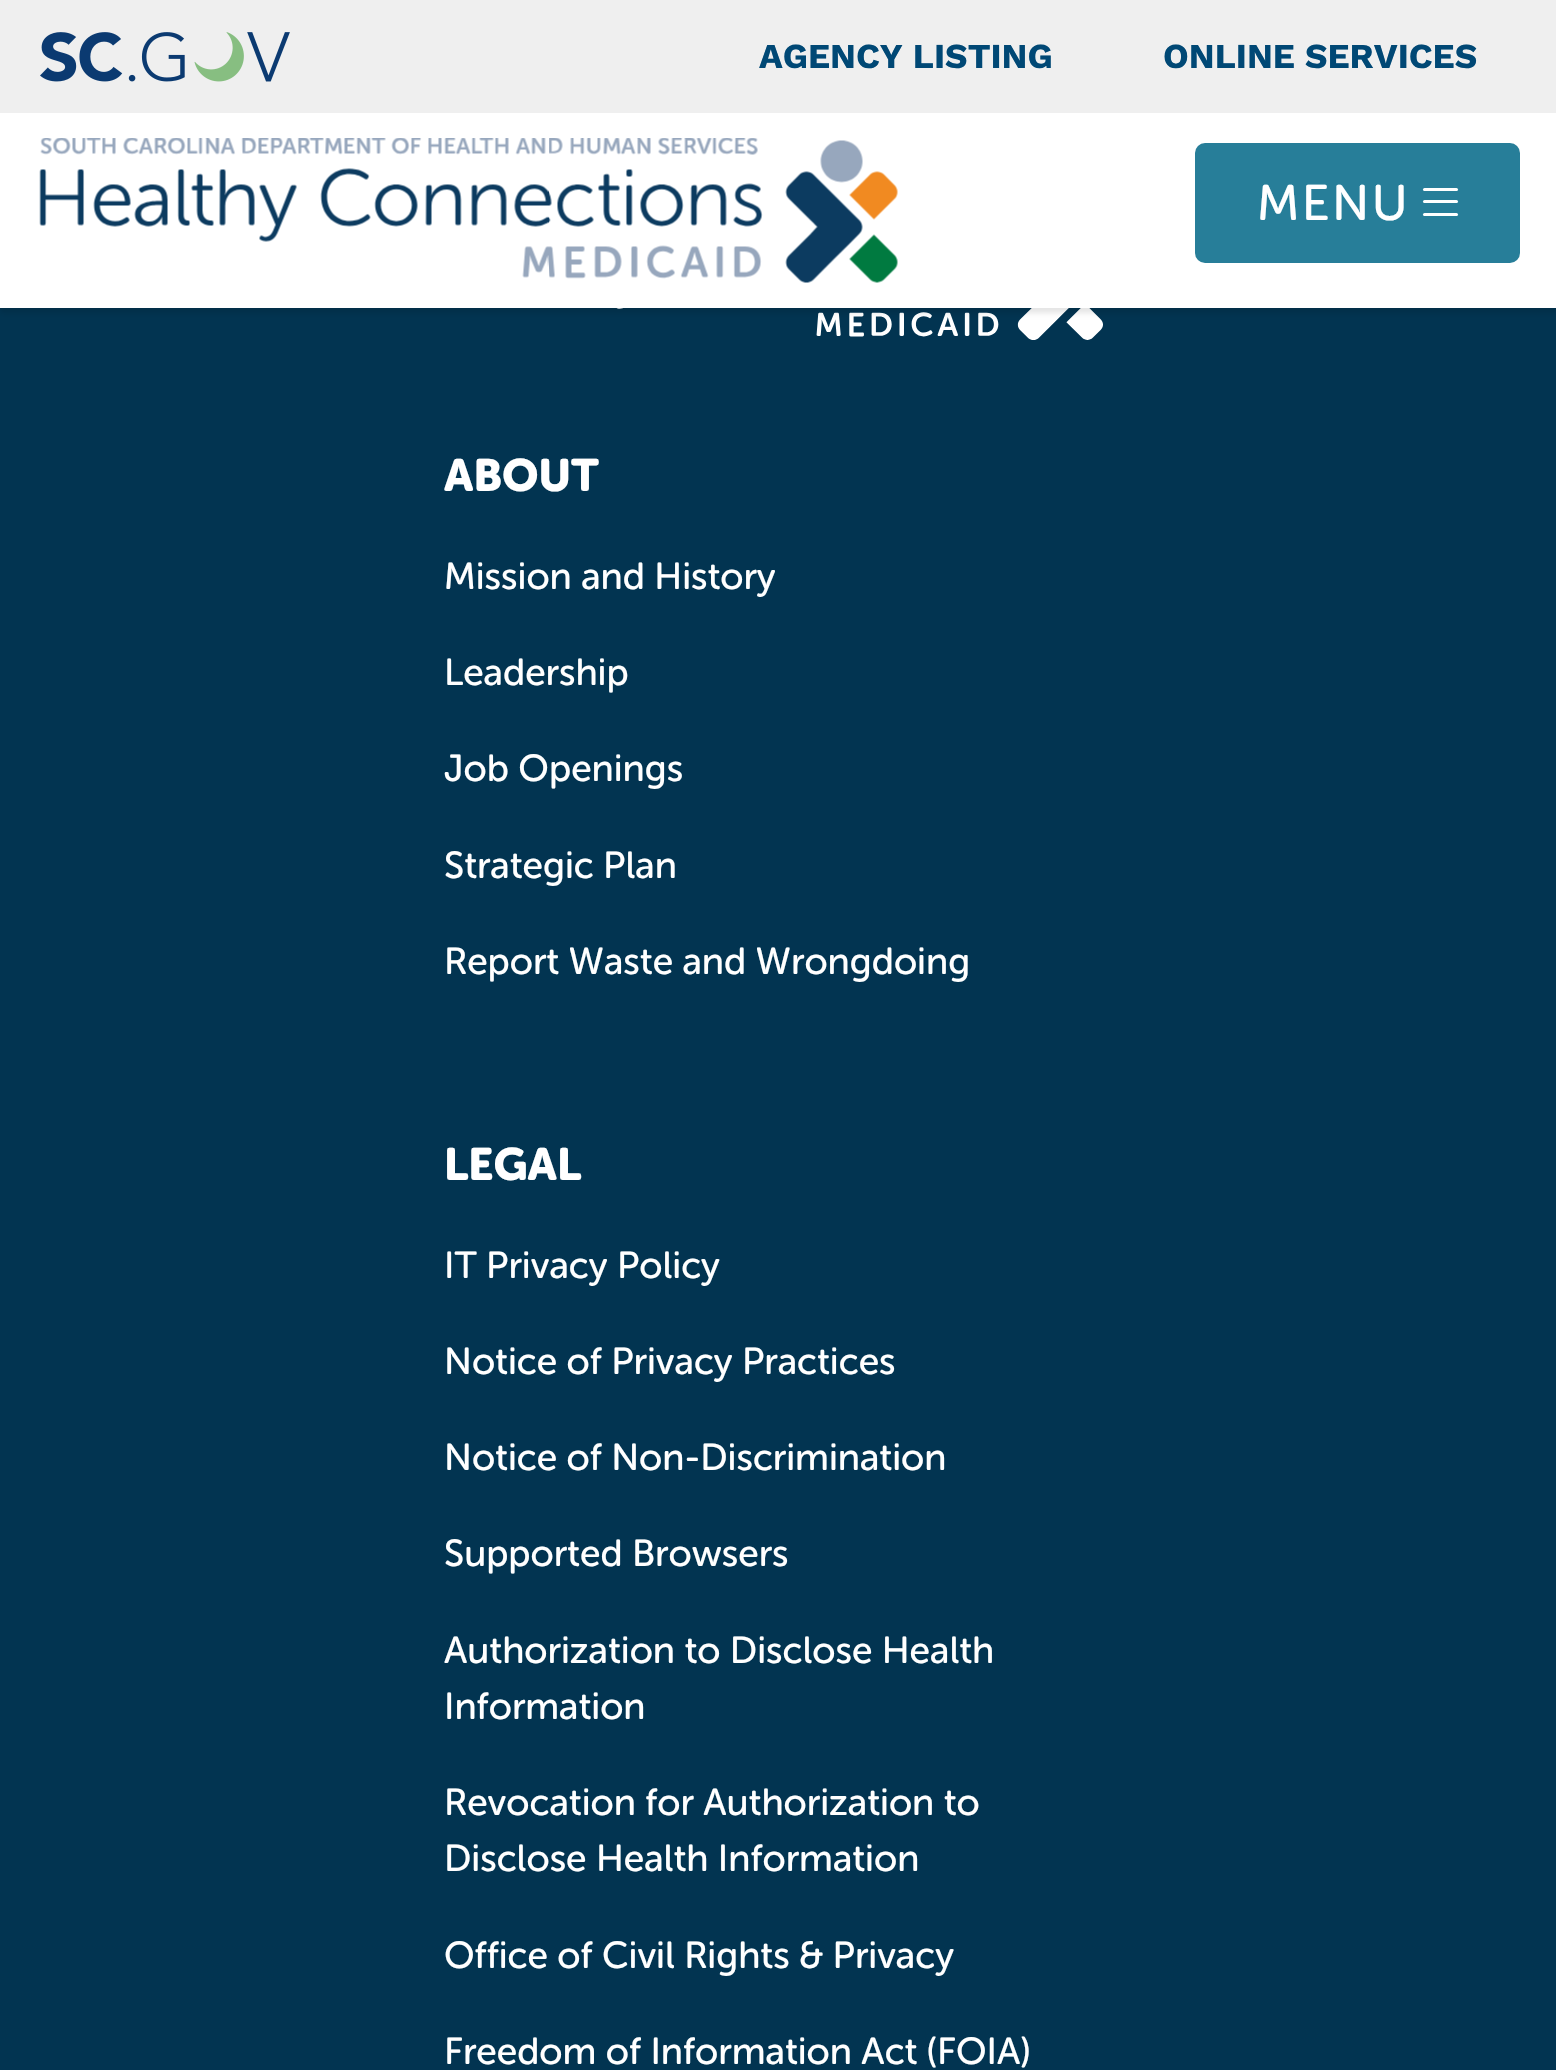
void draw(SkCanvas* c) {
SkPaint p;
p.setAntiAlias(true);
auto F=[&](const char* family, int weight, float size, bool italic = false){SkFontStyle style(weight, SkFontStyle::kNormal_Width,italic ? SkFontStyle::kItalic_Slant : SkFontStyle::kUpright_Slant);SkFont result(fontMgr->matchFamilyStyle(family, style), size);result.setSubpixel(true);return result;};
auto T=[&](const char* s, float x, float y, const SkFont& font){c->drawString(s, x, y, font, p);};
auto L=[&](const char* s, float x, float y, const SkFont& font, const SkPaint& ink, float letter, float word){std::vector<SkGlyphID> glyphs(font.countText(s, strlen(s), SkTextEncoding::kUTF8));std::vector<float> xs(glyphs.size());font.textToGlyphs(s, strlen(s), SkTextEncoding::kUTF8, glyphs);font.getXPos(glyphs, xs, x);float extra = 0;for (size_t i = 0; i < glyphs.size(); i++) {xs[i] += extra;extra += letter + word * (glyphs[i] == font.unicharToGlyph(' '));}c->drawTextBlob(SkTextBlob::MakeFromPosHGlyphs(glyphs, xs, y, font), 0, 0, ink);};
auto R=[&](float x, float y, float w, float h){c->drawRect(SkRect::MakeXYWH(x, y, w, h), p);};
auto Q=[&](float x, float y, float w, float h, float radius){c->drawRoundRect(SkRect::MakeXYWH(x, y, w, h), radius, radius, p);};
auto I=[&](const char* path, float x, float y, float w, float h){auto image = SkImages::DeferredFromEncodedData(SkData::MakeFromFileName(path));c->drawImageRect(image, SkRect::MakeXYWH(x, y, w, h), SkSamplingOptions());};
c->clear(0xff023451);
I("3.png",616,308,487,32);
p.setColor(0x1a000000);
p.setMaskFilter(SkMaskFilter::MakeBlur(kNormal_SkBlurStyle, 2.5));
c->drawRect(SkRect::MakeXYWH(0,5,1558,308),p);
p.setMaskFilter(nullptr);
p.setColor(0xffffffff);
R(0,113,1556,195);
p.setColor(0xffefefef);
R(0,0,1556,113);
I("1.png",40,32,250,50);
auto f1 = F("Work Sans",700,35);
p.setColor(0xff004875);
T("AGENCY LISTING",759,68,f1);
T("ONLINE SERVICES",1163,68,f1);
I("2.png",39,138,859,145);
p.setColor(0xff277e99);
Q(1195,143,325,120,10);
auto f2 = F("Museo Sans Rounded",400,50);
p.setColor(0xffffffff);
L("MENU",1257,220,f2,p,2.5,0);
Q(1423,200,35,3,1.5);
Q(1423,188,35,3,1.5);
Q(1423,213,35,3,1.5);
auto f3 = F("Museo Sans Rounded",700,45);
T("ABOUT",444,491,f3);
auto f4 = F("Museo Sans Rounded",400,37.5);
T("Mission and History",444,589,f4);
T("Leadership",444,685,f4);
T("Job Openings",444,781,f4);
T("Strategic Plan",444,878,f4);
T("Report Waste and Wrongdoing",444,974,f4);
T("LEGAL",444,1180,f3);
T("IT Privacy Policy",444,1278,f4);
T("Notice of Privacy Practices",444,1374,f4);
T("Notice of Non-Discrimination",444,1470,f4);
T("Supported Browsers",444,1566,f4);
T("Authorization to Disclose Health",444,1663,f4);
T("Information",444,1719,f4);
T("Revocation for Authorization to",444,1815,f4);
T("Disclose Health Information",444,1871,f4);
T("Office of Civil Rights & Privacy",444,1968,f4);
T("Freedom of Information Act (FOIA)",444,2064,f4);
}
